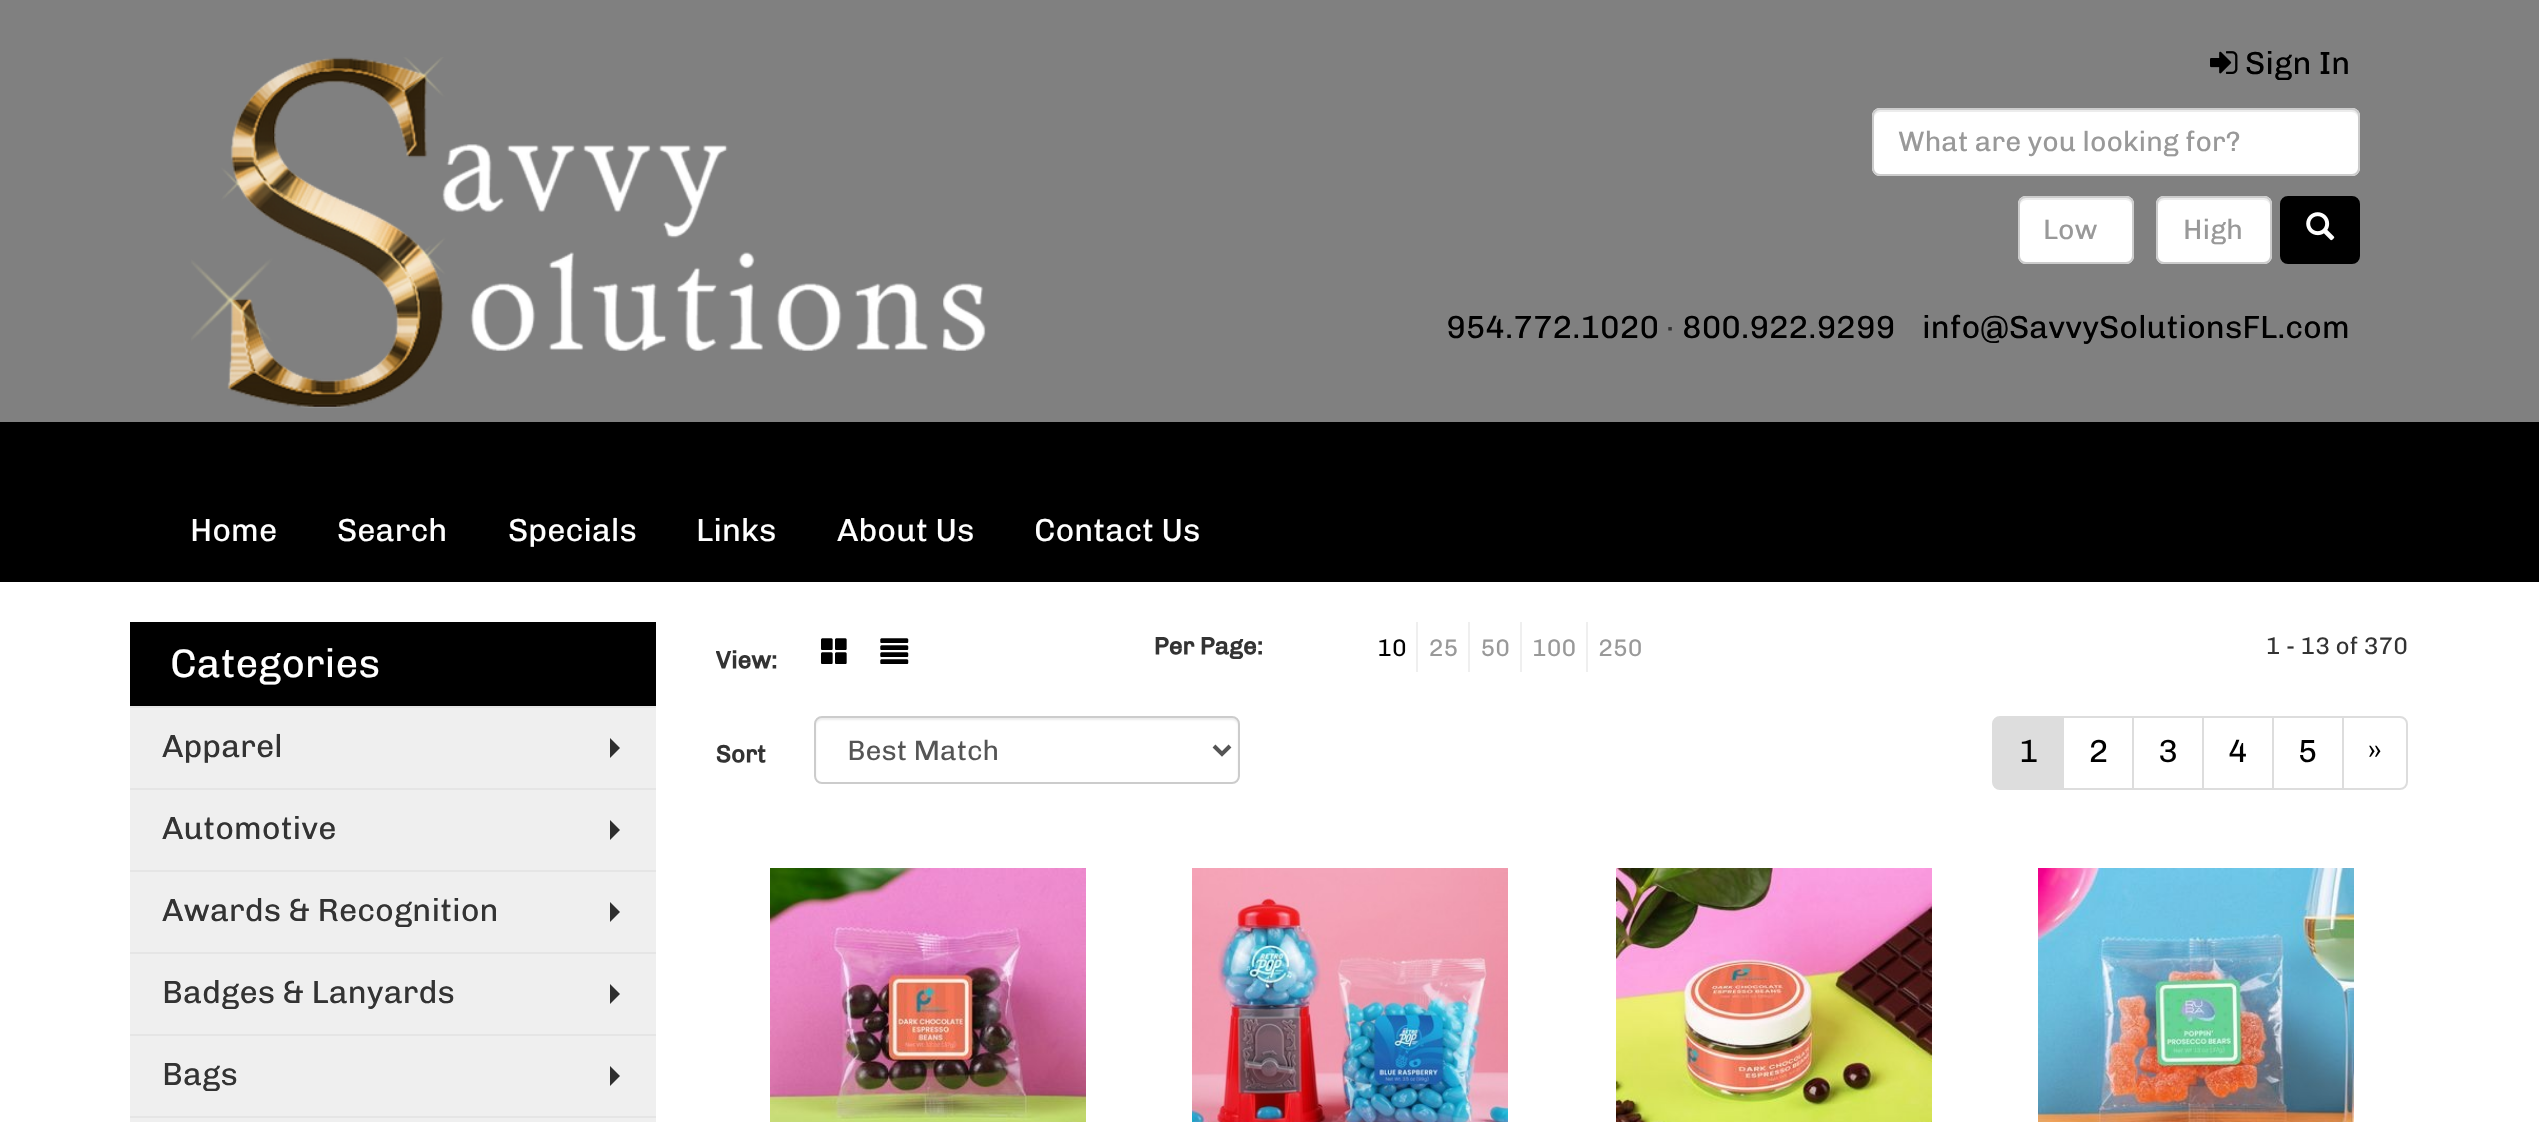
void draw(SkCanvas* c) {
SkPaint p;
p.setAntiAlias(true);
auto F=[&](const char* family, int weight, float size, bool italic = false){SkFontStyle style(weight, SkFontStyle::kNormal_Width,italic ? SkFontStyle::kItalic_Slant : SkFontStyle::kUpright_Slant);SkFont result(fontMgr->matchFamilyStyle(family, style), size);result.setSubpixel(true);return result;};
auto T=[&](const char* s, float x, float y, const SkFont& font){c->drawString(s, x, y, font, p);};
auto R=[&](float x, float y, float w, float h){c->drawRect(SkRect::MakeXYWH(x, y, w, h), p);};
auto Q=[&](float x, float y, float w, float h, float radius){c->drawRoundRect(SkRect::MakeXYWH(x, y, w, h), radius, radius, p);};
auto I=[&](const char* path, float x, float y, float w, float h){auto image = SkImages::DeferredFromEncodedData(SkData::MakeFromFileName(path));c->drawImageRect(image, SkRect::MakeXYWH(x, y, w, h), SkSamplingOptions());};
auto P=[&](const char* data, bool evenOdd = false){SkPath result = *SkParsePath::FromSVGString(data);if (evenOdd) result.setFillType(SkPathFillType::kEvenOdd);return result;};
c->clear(0xff000000);
p.setColor(0xff808080);
R(0,0,2539,422);
I("1.png",191,57,795,351);
I("2.png",2210,51,28,23);
auto f1 = F("Chivo",500,32);
p.setColor(0xff000000);
T("Sign In",2245,74,f1);
p.setColor(0xffffffff);
Q(1872,108,488,68,8);
p.setColor(0xffececec);
c->drawPath(P("M1880 112h472c3 0 6 3 6 6c0-4-1-8-6-8h-472c-5 0-6 4-6 8c0-3 3-6 6-6z"),p);
p.setStroke(true);
p.setStrokeWidth(2);
p.setColor(0xffcccccc);
c->drawRoundRect(SkRect::MakeXYWH(1873,109,486,66),7,7,p);
auto f2 = F("Chivo",500,28);
p.setStroke(false);
p.setColor(0xff999999);
T("What are you looking for?",1898,151,f2);
p.setColor(0xffffffff);
Q(2018,196,116,68,8);
p.setColor(0xffececec);
c->drawPath(P("M2026 200h100c3 0 6 3 6 6c0-12-13-8-23-8h-66c-10 0-23-4-23 8c0-3 3-6 6-6z"),p);
p.setStroke(true);
p.setColor(0xffcccccc);
c->drawRoundRect(SkRect::MakeXYWH(2019,197,114,66),7,7,p);
p.setStroke(false);
p.setColor(0xff999999);
T("Low",2043,239,f2);
p.setColor(0xffffffff);
Q(2156,196,116,68,8);
p.setColor(0xffececec);
c->drawPath(P("M2164 200h100c3 0 6 3 6 6c0-12-13-8-23-8h-66c-10 0-23-4-23 8c0-3 3-6 6-6z"),p);
p.setStroke(true);
p.setColor(0xffcccccc);
c->drawRoundRect(SkRect::MakeXYWH(2157,197,114,66),7,7,p);
p.setStroke(false);
p.setColor(0xff999999);
T("High",2183,239,f2);
p.setColor(0xff000000);
c->drawRoundRect(SkRect::MakeXYWH(2281,197,78,66),7,7,p);
p.setStroke(true);
c->drawRoundRect(SkRect::MakeXYWH(2281,197,78,66),7,7,p);
I("3.png",2306,212,29,29);
p.setStroke(false);
T("954.772.1020",1446,338,f1);
p.setColor(0xff333333);
T("·",1666,338,f1);
p.setColor(0xff000000);
T("800.922.9299",1682,338,f1);
T("info@SavvySolutionsFL.com",1922,338,f1);
p.setColor(0xffffffff);
T("Home",190,541,f1);
T("Search",337,541,f1);
T("Specials",508,541,f1);
T("Links",696,541,f1);
T("About Us",837,541,f1);
T("Contact Us",1034,541,f1);
R(0,582,2539,540);
p.setColor(0xff000000);
R(130,622,526,84);
auto f3 = F("Chivo",500,40);
p.setColor(0xffffffff);
T("Categories",170,677,f3);
p.setColor(0xffefefef);
R(130,708,526,80);
p.setColor(0xffe5e5e5);
R(130,706,526,2);
p.setColor(0xff333333);
T("Apparel",162,757,f1);
p.setColor(0xff2e2e2e);
c->drawPath(P("M610 758v-20l10 10z"),p);
p.setColor(0xffefefef);
R(130,790,526,80);
p.setColor(0xffe5e5e5);
R(130,788,526,2);
p.setColor(0xff333333);
T("Automotive",162,839,f1);
p.setColor(0xff2e2e2e);
c->drawPath(P("M610 840v-20l10 10z"),p);
p.setColor(0xffefefef);
R(130,872,526,80);
p.setColor(0xffe5e5e5);
R(130,870,526,2);
p.setColor(0xff333333);
T("Awards & Recognition",162,921,f1);
p.setColor(0xff2e2e2e);
c->drawPath(P("M610 922v-20l10 10z"),p);
p.setColor(0xffefefef);
R(130,954,526,80);
p.setColor(0xffe5e5e5);
R(130,952,526,2);
p.setColor(0xff333333);
T("Badges & Lanyards",162,1003,f1);
p.setColor(0xff2e2e2e);
c->drawPath(P("M610 1004v-20l10 10z"),p);
p.setColor(0xffefefef);
R(130,1036,526,80);
p.setColor(0xffe5e5e5);
R(130,1034,526,2);
p.setColor(0xff333333);
T("Bags",162,1085,f1);
p.setColor(0xff2e2e2e);
c->drawPath(P("M610 1086v-20l10 10z"),p);
p.setColor(0xffefefef);
R(130,1118,526,4);
p.setColor(0xffe5e5e5);
R(130,1116,526,2);
I("4.png",716,622,1692,500);
}
